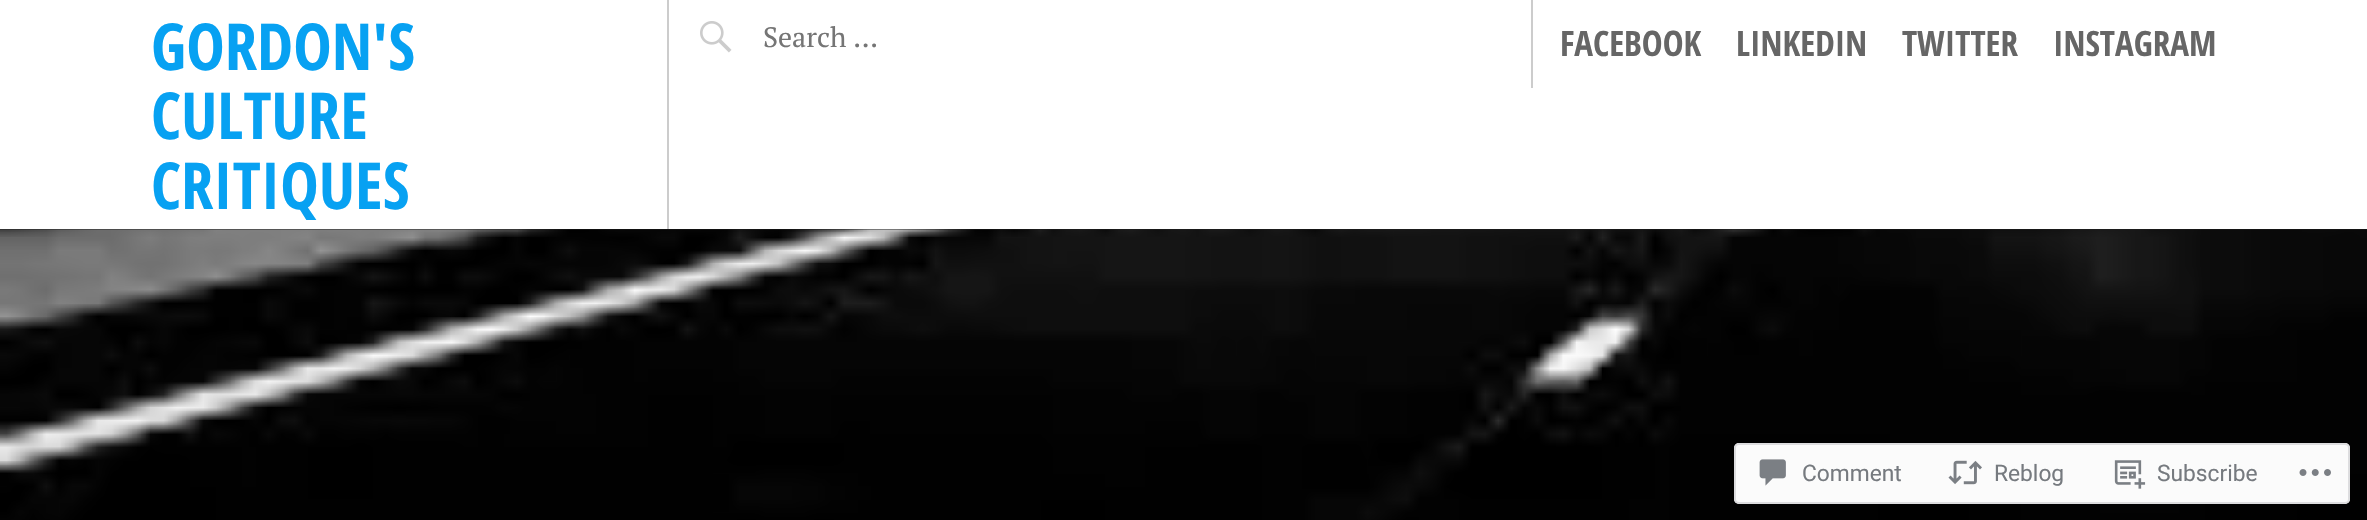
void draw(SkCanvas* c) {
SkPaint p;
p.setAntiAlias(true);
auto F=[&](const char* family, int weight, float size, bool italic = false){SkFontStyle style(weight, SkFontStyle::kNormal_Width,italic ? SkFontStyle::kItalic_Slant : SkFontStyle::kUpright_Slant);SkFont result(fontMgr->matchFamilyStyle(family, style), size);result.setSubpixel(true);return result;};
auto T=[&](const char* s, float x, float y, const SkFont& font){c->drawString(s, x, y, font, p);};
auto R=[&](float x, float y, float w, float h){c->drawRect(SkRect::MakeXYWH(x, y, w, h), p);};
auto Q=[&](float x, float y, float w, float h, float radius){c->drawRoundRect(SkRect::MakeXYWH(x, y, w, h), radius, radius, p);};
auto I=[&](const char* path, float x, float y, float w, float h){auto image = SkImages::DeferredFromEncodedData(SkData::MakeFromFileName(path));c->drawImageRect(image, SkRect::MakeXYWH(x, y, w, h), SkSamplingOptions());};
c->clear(0xffffffff);
p.setColor(0xffcccccc);
R(667,0,2,229);
auto f1 = F("Open Sans Condensed",700,64.75);
p.setColor(0xff07a1f2);
T("GORDON'S",151,70,f1);
T("CULTURE",151,139,f1);
T("CRITIQUES",151,209,f1);
I("1.png",700,21,32,32);
auto f2 = F("PT Serif",400,28);
p.setColor(0xff757575);
T("Search …",763,47,f2);
p.setColor(0xffcccccc);
R(1531,0,2,88);
auto f3 = F("Open Sans Condensed",700,35);
p.setColor(0xff666666);
T("FACEBOOK",1560,56,f3);
T("LINKEDIN",1736,56,f3);
T("TWITTER",1902,56,f3);
T("INSTAGRAM",2053,56,f3);
p.setColor(0xff1e1e1e);
R(0,229,2367,1);
I("2.png",0,229,2367,291);
p.setColor(0xfaffffff);
Q(1734,443,616,61,5);
p.setStroke(true);
p.setStrokeWidth(2);
p.setColor(0xfadcdcde);
c->drawRoundRect(SkRect::MakeXYWH(1735,444,614,59),4,4,p);
I("3.png",1759,459,27,27);
auto f4 = F("Roboto",400,22.75);
p.setStroke(false);
p.setColor(0xff767a7f);
T("Comment",1802,481,f4);
I("4.png",1948,460,34,25);
T("Reblog",1994,481,f4);
I("5.png",2114,460,32,29);
T("Subscribe",2157,481,f4);
I("6.png",2299,469,32,7);
}
